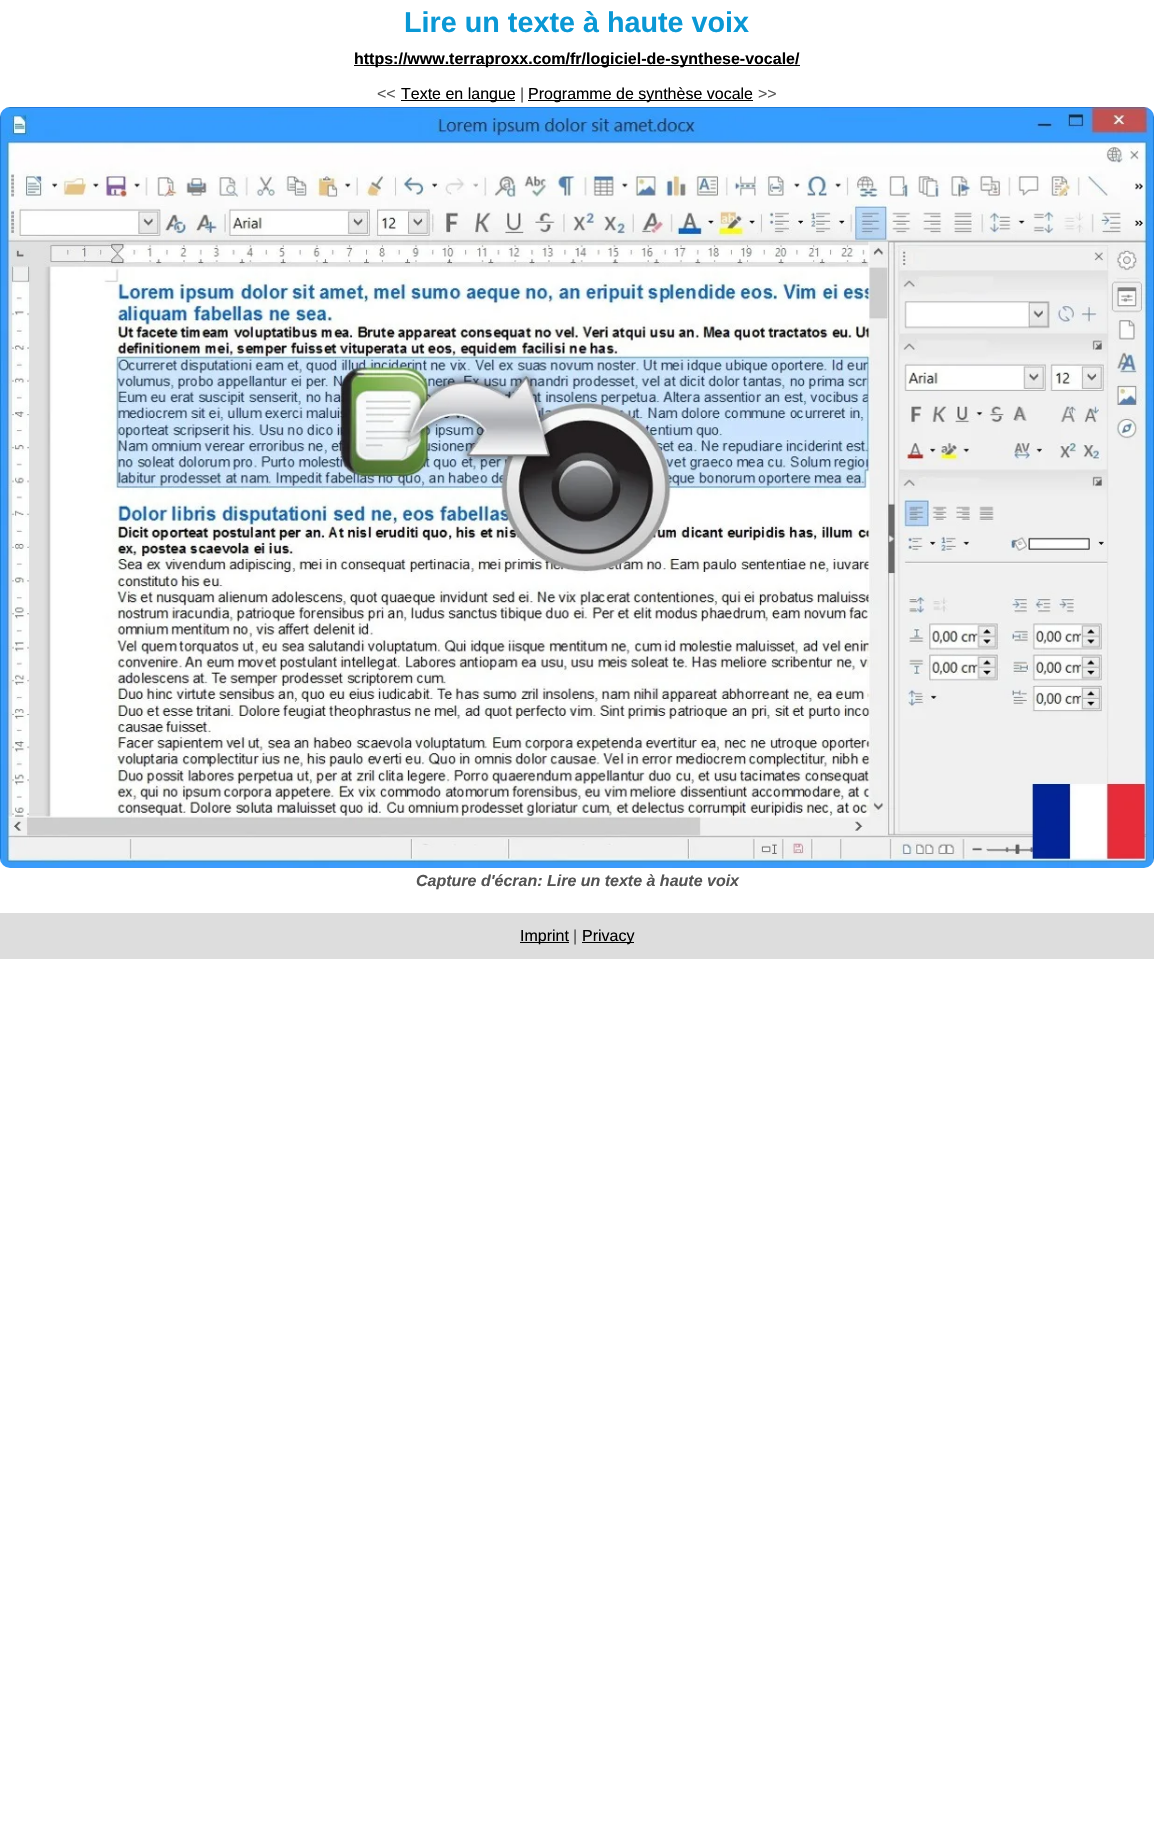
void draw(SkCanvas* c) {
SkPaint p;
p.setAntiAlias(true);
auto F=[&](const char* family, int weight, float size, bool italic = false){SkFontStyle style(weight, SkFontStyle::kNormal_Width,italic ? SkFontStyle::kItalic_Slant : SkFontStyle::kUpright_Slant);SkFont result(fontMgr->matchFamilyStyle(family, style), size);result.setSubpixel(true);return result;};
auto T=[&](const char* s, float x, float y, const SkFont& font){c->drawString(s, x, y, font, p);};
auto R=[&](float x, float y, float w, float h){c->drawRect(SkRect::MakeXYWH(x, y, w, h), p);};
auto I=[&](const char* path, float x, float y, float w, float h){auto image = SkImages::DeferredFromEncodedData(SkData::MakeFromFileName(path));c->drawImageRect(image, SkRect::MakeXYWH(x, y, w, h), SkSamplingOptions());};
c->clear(0xffffffff);
auto f1 = F("Liberation Sans",700,28.75);
p.setColor(0xff0a98d5);
T("Lire un texte à haute voix",404,32,f1);
p.setColor(0xff000000);
R(354,65,446,1);
auto f2 = F("Liberation Sans",700,16);
T("https://www.terraproxx.com/fr/logiciel-de-synthese-vocale/",354,64,f2);
auto f3 = F("Liberation Sans",400,16);
p.setColor(0xff555555);
T("<<",377,99,f3);
p.setColor(0xff000000);
R(401,100,114,1);
T("Texte en langue",401,99,f3);
p.setColor(0xff555555);
T("|",520,99,f3);
p.setColor(0xff000000);
R(528,100,225,1);
T("Programme de synthèse vocale",528,99,f3);
p.setColor(0xff555555);
T(">>",758,99,f3);
I("1.png",0,107,1154,761);
auto f4 = F("Liberation Sans",700,16,true);
T("Capture d'écran: Lire un texte à haute voix",416,886,f4);
p.setColor(0xffdddddd);
R(0,913,1154,46);
p.setColor(0xff000000);
R(520,942,49,1);
T("Imprint",520,941,f3);
p.setColor(0xff555555);
T("|",573,941,f3);
p.setColor(0xff000000);
R(582,942,52,1);
T("Privacy",582,941,f3);
}
